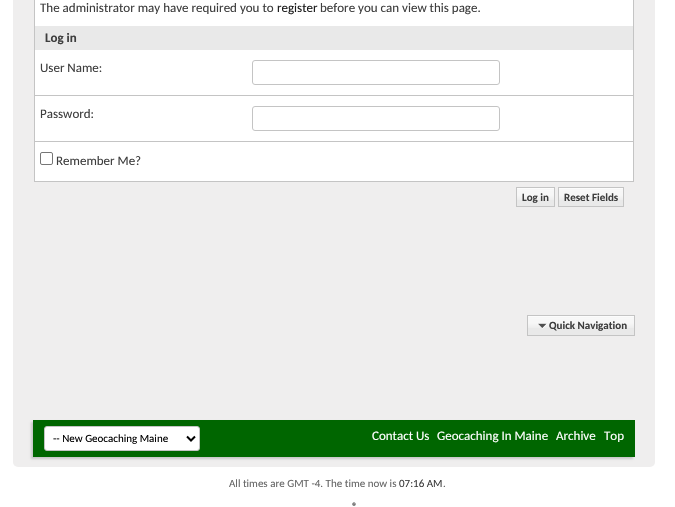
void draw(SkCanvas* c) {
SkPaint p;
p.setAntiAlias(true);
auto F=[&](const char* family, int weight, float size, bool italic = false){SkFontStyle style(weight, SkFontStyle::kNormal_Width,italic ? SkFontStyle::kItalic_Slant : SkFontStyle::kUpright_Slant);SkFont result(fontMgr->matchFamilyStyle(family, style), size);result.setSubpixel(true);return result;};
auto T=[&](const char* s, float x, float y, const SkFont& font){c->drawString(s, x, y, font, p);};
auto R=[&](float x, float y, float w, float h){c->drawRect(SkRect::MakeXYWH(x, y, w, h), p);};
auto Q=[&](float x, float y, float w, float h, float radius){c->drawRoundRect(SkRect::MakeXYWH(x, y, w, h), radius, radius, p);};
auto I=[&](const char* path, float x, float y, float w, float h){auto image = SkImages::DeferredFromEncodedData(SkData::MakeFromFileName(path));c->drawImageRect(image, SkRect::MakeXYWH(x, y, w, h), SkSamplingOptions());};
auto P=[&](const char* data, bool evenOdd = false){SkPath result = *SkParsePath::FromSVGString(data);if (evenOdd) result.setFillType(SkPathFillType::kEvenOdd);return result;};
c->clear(0xffffffff);
p.setColor(0xffefeeee);
Q(13,-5,642,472,5);
p.setColor(0xffffffff);
R(35,0,598,181);
p.setColor(0xffc4c4c4);
R(633,0,1,182);
R(34,181,600,1);
R(34,0,1,182);
auto f1 = F("Carlito",400,13);
p.setColor(0xff3e3e3e);
T("The administrator may have required you to",40,12,f1);
p.setColor(0xff1a1a1a);
T("register",277,12,f1);
p.setColor(0xff3e3e3e);
T("before you can view this page.",320,12,f1);
p.setColor(0xffe9e9e9);
R(35,26,598,24);
auto f2 = F("Carlito",700,13);
p.setColor(0xff3e3e3e);
T("Log in",45,42,f2);
T("User Name:",40,72,f1);
p.setStroke(true);
p.setStrokeWidth(1);
p.setColor(0xffc4c4c4);
c->drawRoundRect(SkRect::MakeXYWH(252.5,60.5,247,24),2.5,2.5,p);
p.setStroke(false);
R(35,95,598,1);
p.setColor(0xff3e3e3e);
T("Password:",40,118,f1);
p.setStroke(true);
p.setColor(0xffc4c4c4);
c->drawRoundRect(SkRect::MakeXYWH(252.5,106.5,247,24),2.5,2.5,p);
p.setStroke(false);
R(35,141,598,1);
p.setStroke(true);
p.setColor(0xff767676);
c->drawRoundRect(SkRect::MakeXYWH(40.5,152.5,12,12),1.5,1.5,p);
p.setStroke(false);
p.setColor(0xff3e3e3e);
T("Remember Me?",56,165,f1);
p.setColor(0xffe9e9e9);
R(517,188,37,18);
I("1.png",517,188,37,12);
p.setStroke(true);
p.setColor(0xffc4c4c4);
c->drawRect(SkRect::MakeXYWH(516.5,187.5,38,19),p);
auto f3 = F("Carlito",700,11);
p.setStroke(false);
p.setColor(0xff3e3e3e);
T("Log in",522,201,f3);
p.setColor(0xffe9e9e9);
R(559,188,64,18);
I("2.png",559,188,64,12);
p.setStroke(true);
p.setColor(0xffc4c4c4);
c->drawRect(SkRect::MakeXYWH(558.5,187.5,65,19),p);
p.setStroke(false);
p.setColor(0xff3e3e3e);
T("Reset Fields",564,201,f3);
p.setColor(0xffe9e9e9);
R(528,316,106,19);
I("3.png",528,316,106,12);
p.setStroke(true);
p.setColor(0xffc4c4c4);
c->drawRect(SkRect::MakeXYWH(527.5,315.5,107,20),p);
I("4.png",538,323,9,6);
p.setStroke(false);
p.setColor(0xff3e3e3e);
T("Quick Navigation",549,329,f3);
p.setColor(0xffc8c8c8);
p.setMaskFilter(SkMaskFilter::MakeBlur(kNormal_SkBlurStyle, 1));
c->drawRect(SkRect::MakeXYWH(31,422,602,37),p);
p.setMaskFilter(nullptr);
p.setColor(0xff006600);
R(33,420,602,37);
p.setColor(0xffffffff);
c->drawRoundRect(SkRect::MakeXYWH(44.5,426.5,155,24),2.5,2.5,p);
p.setStroke(true);
p.setColor(0xffc4c4c4);
c->drawRoundRect(SkRect::MakeXYWH(44.5,426.5,155,24),2.5,2.5,p);
p.setStrokeWidth(2);
p.setColor(0xff000000);
c->drawPath(P("M187 436.5l4 4l4-4"),p);
auto f4 = F("Carlito",400,11);
p.setStroke(false);
T("-- New Geocaching Maine",53,442,f4);
p.setColor(0xffffffff);
T("Contact Us",372,440,f1);
T("Geocaching In Maine",437,440,f1);
T("Archive",556,440,f1);
T("Top",604,440,f1);
p.setColor(0xff666666);
T("All times are GMT -4. The time now is",229,487,f4);
p.setColor(0xff3e3e3e);
T("07:16 AM",399,487,f4);
p.setColor(0xff666666);
T(".",443,487,f4);
p.setColor(0xff1a1a1a);
T("®",352,510,f4);
}
